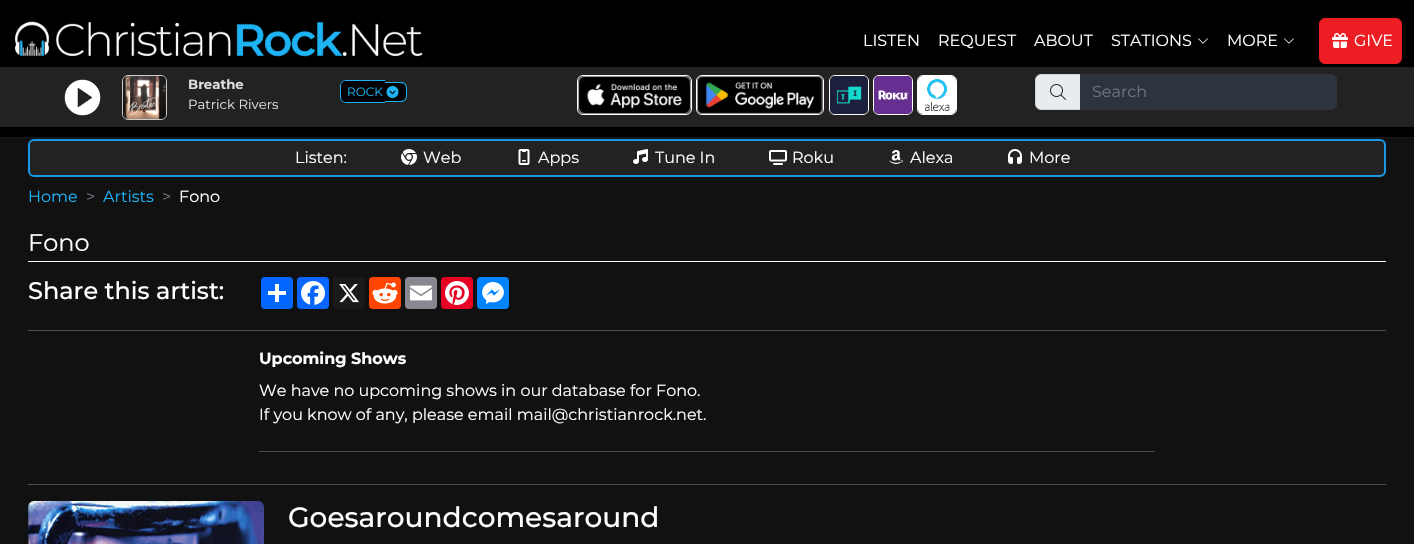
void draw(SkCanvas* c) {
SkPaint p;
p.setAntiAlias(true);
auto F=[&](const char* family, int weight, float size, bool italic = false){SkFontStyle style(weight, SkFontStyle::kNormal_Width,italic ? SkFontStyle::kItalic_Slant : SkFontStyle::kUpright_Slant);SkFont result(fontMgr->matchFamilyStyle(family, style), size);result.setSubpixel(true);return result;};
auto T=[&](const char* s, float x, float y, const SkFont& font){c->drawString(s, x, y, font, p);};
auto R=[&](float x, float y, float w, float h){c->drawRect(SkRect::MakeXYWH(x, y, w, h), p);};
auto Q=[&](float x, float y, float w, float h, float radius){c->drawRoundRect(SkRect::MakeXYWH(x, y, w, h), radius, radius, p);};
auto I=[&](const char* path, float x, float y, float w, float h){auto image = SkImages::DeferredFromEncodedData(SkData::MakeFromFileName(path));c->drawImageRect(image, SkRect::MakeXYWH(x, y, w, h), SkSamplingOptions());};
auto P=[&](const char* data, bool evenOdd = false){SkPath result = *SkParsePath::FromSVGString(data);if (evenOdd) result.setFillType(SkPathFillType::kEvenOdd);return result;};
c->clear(0xff111111);
p.setColor(0xff000000);
R(0,0,1414,137);
p.setColor(0xff1a1a1a);
R(0,137,1414,1);
I("1.png",14,21,409,36);
auto f1 = F("Montserrat",400,16);
p.setColor(0xffffffff);
T("LISTEN",863,46,f1);
T("REQUEST",938,46,f1);
T("ABOUT",1034,46,f1);
T("STATIONS",1111,46,f1);
I("2.png",1198,38,10,6);
T("MORE",1227,46,f1);
I("2.png",1284,38,10,6);
p.setColor(0xffed1d24);
c->drawRoundRect(SkRect::MakeXYWH(1319.5,18.5,82,45),5.5,5.5,p);
p.setStroke(true);
p.setStrokeWidth(1);
c->drawRoundRect(SkRect::MakeXYWH(1319.5,18.5,82,45),5.5,5.5,p);
I("3.png",1332,33,16,15);
p.setStroke(false);
p.setColor(0xffffffff);
T("GIVE",1354,46,f1);
p.setColor(0xff222222);
R(0,67,1414,60);
I("4.png",64,79,37,37);
p.setStroke(true);
p.setColor(0xffcccccc);
c->drawRoundRect(SkRect::MakeXYWH(122.5,75.5,44,44),5.5,5.5,p);
I("5.png",123,76,43,43);
auto f2 = F("Montserrat",700,13.25);
p.setStroke(false);
p.setColor(0xffdddddd);
T("Breathe",188,89,f2);
auto f3 = F("Montserrat",400,13.25);
T("Patrick Rivers",188,109,f3);
p.setColor(0xff000000);
c->drawPath(P("M346 80h39v23h-39c-3.5 0-6-2.5-6-6v-11c0-3.5 2.5-6 6-6z"),p);
p.setColor(0xff1eb3f4);
c->drawPath(P("M346 80h39v23h-39c-3 0-6-3-6-6v-11c0-3 3-6 6-6zm0 1h39v21h-39c-3 0-5-2-5-5v-11c0-3 2-5 5-5z",true),p);
p.setColor(0xff000000);
c->drawPath(P("M385 82h16c3.5 0 6 2.5 6 6v8c0 3.5-2.5 6-6 6h-16z"),p);
p.setColor(0xff1eb3f4);
c->drawPath(P("M385 82h16c3.5 0 6 2.5 6 6v8c0 3.5-2.5 6-6 6h-16zm0 1h13.5c7.5 0 7.5 2 7.5 9c0 7 0 9-7.5 9h-13.5z",true),p);
auto f4 = F("Montserrat",400,12);
T("ROCK",347,96,f4);
I("6.png",386,86,13,12);
p.setStroke(true);
p.setColor(0xffffffff);
c->drawRoundRect(SkRect::MakeXYWH(577.5,75.5,114,39),5.5,5.5,p);
c->drawRoundRect(SkRect::MakeXYWH(696.5,75.5,127,39),5.5,5.5,p);
c->drawRoundRect(SkRect::MakeXYWH(829.5,75.5,39,39),5.5,5.5,p);
I("7.png",830,76,38,38);
c->drawRoundRect(SkRect::MakeXYWH(873.5,75.5,39,39),5.5,5.5,p);
I("8.png",874,76,38,38);
c->drawRoundRect(SkRect::MakeXYWH(917.5,75.5,39,39),5.5,5.5,p);
I("9.png",918,76,38,38);
I("10.png",578,76,113,38);
I("11.png",697,76,126,38);
p.setStroke(false);
p.setColor(0xffe9ecef);
c->drawPath(P("M1041 74.5h39.5v35h-39.5c-3 0-5.5-2.5-5.5-5.5v-24c0-3 2.5-5.5 5.5-5.5z"),p);
p.setStroke(true);
p.setColor(0xffced4da);
c->drawPath(P("M1041 74.5h39.5v35h-39.5c-3 0-5.5-2.5-5.5-5.5v-24c0-3 2.5-5.5 5.5-5.5z"),p);
I("12.png",1050,84,16,16);
p.setStroke(false);
p.setColor(0xff2d343d);
c->drawPath(P("M1080 74h251c3.5 0 6 2.5 6 6v24c0 3.5-2.5 6-6 6h-251z"),p);
p.setColor(0xff6c757d);
T("Search",1092,97,f1);
p.setColor(0xff222222);
c->drawRoundRect(SkRect::MakeXYWH(29,140,1356,36),5,5,p);
p.setStroke(true);
p.setStrokeWidth(2);
p.setColor(0xff1997e5);
c->drawRoundRect(SkRect::MakeXYWH(29,140,1356,36),5,5,p);
p.setStroke(false);
p.setColor(0xffffffff);
T("Listen:",295,163,f1);
I("13.png",401,149,16,16);
T("Web",423,163,f1);
I("14.png",518,149,12,16);
T("Apps",538,163,f1);
I("15.png",633,149,15,15);
T("Tune In",655,163,f1);
I("16.png",769,150,18,15);
T("Roku",792,163,f1);
I("17.png",889,150,14,14);
T("Alexa",910,163,f1);
I("18.png",1008,149,14,15);
T("More",1029,163,f1);
p.setColor(0xff1eb3f4);
T("Home",28,202,f1);
p.setColor(0xff6c757d);
T(">",86,202,f1);
p.setColor(0xff1eb3f4);
T("Artists",103,202,f1);
p.setColor(0xff6c757d);
T(">",162,202,f1);
p.setColor(0xffffffff);
T("Fono",179,202,f1);
R(28,261,1358,1);
auto f5 = F("Montserrat",400,24);
T("Fono",28,251,f5);
auto f6 = F("Montserrat",500,24);
T("Share this artist:",28,299,f6);
p.setColor(0xff0166ff);
Q(261,277,32,32,4);
p.setColor(0xffffffff);
R(275,284,4,18);
R(268,291,18,4);
p.setColor(0xff0866ff);
Q(297,277,32,32,4);
I("19.png",301,281,24,24);
p.setColor(0xff1a1a1a);
Q(333,277,32,32,4);
I("20.png",339,284,20,19);
p.setColor(0xffff4500);
Q(369,277,32,32,4);
I("21.png",372,282,26,22);
p.setColor(0xff888990);
Q(405,277,32,32,4);
I("22.png",410,285,22,16);
p.setColor(0xffe60023);
Q(441,277,32,32,4);
I("23.png",445,281,24,24);
p.setColor(0xff0084ff);
Q(477,277,32,32,4);
I("24.png",482,282,22,22);
p.setColor(0xff4d4d4d);
R(28,330,1358,1);
auto f7 = F("Montserrat",700,16);
p.setColor(0xffffffff);
T("Upcoming Shows",259,364,f7);
T("We have no upcoming shows in our database for Fono.",259,396,f1);
T("If you know of any, please email mail@christianrock.net.",259,420,f1);
p.setColor(0xff4d4d4d);
R(259,451,896,1);
R(28,484,1358,1);
I("25.png",28,501,236,43);
auto f8 = F("Montserrat",500,28);
p.setColor(0xffffffff);
T("Goesaroundcomesaround",288,527,f8);
}
